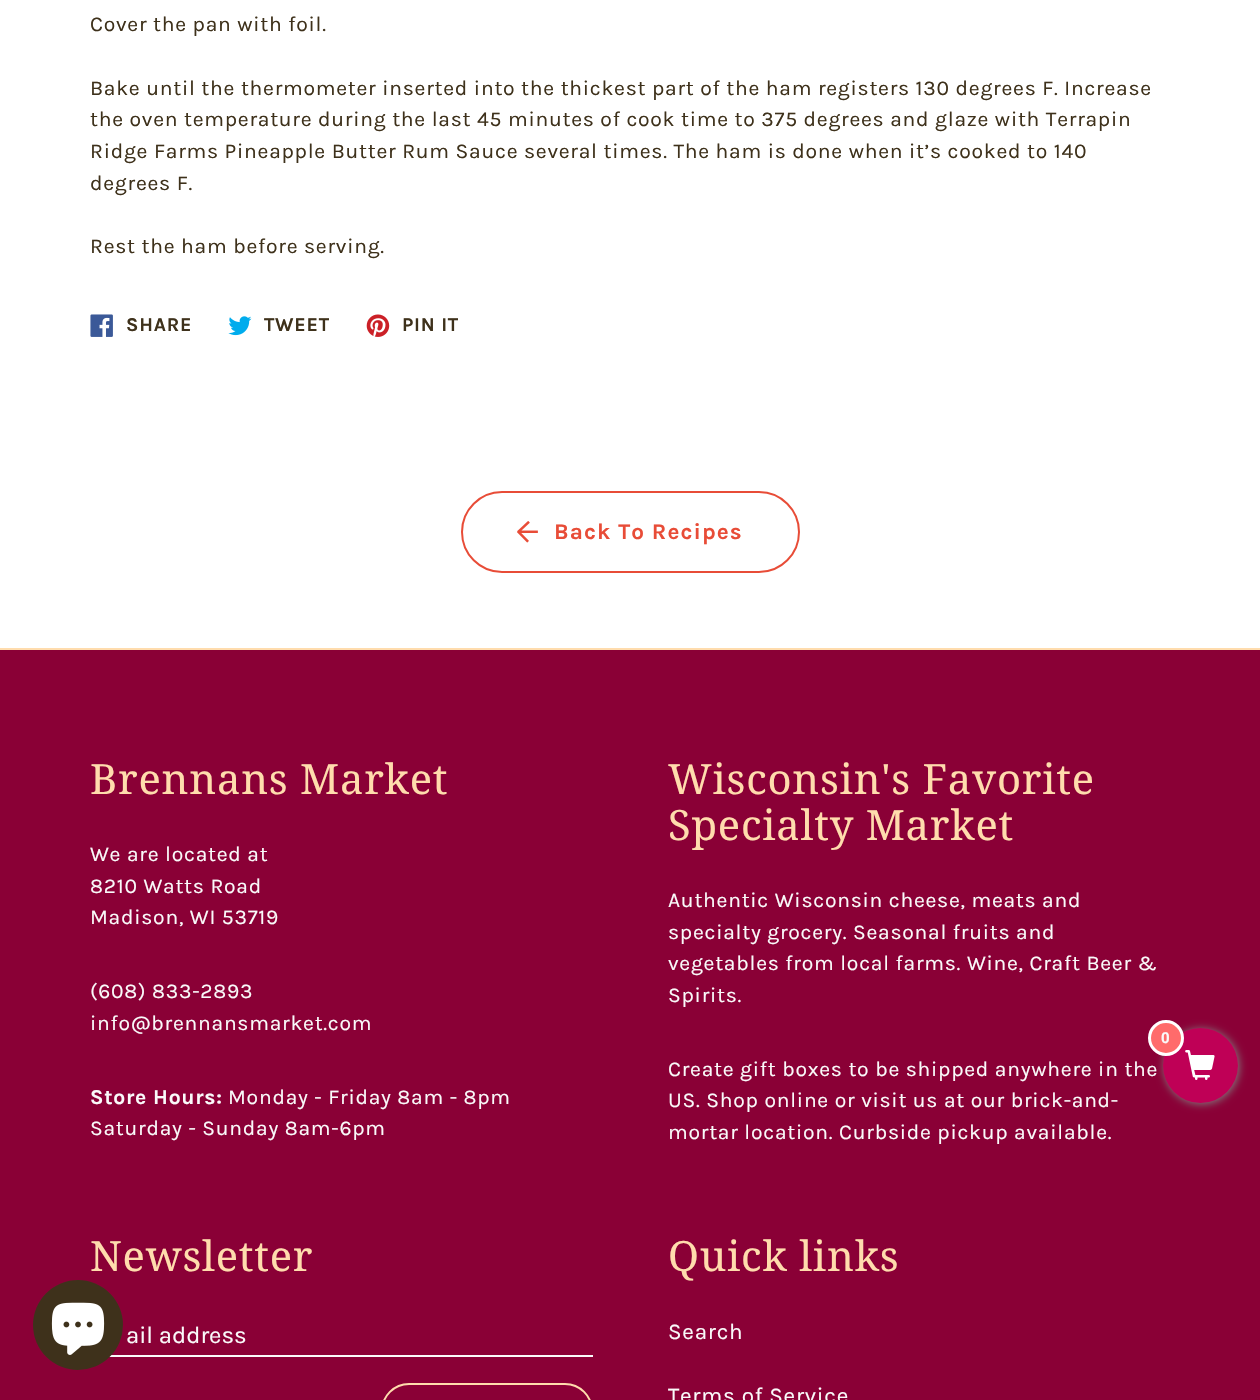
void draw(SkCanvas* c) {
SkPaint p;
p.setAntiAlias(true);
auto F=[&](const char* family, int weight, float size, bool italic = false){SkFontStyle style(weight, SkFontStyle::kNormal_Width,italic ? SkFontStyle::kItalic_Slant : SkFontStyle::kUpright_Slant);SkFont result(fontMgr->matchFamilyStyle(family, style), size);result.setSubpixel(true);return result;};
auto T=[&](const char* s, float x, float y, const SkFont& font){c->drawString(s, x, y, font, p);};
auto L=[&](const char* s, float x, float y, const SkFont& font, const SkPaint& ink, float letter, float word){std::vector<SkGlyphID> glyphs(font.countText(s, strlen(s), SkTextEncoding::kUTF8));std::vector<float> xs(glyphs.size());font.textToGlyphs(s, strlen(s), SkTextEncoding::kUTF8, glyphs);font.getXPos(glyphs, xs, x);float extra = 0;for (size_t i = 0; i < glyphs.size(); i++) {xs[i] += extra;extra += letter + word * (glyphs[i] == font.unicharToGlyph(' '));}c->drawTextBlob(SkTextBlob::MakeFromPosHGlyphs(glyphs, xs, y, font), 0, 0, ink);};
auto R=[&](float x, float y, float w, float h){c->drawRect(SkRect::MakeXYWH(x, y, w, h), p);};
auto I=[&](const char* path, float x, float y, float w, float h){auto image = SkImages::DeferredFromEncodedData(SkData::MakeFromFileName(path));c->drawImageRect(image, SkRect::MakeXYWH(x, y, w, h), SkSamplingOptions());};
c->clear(0xffffffff);
auto f1 = F("Karla",400,21.1);
p.setColor(0xff3e311b);
L("Cover the pan with foil.",90,31,f1,p,.75,0);
L("Bake until the thermometer inserted into the thickest part of the ham registers 130 degrees F. Increase",90,95,f1,p,.75,0);
L("the oven temperature during the last 45 minutes of cook time to 375 degrees and glaze with Terrapin",90,126,f1,p,.75,0);
L("Ridge Farms Pineapple Butter Rum Sauce several times. The ham is done when it’s cooked to 140",90,158,f1,p,.75,0);
L("degrees F.",90,190,f1,p,.75,0);
L("Rest the ham before serving.",90,253,f1,p,.75,0);
I("1.png",90,314,23,23);
auto f2 = F("Karla",700,19.5);
L("SHARE",126,331,f2,p,.75,0);
I("2.png",228,316,24,20);
L("TWEET",264,331,f2,p,.75,0);
I("3.png",366,314,24,23);
L("PIN IT",402,331,f2,p,.75,0);
p.setStroke(true);
p.setStrokeWidth(2);
p.setColor(0xffe84c37);
c->drawRoundRect(SkRect::MakeXYWH(462,492,337,80),40,40,p);
I("4.png",517,521,21,22);
auto f3 = F("Karla",700,22.5);
p.setStroke(false);
L("Back To Recipes",554,539,f3,p,1.1,0);
p.setColor(0xff8a0036);
R(0,650,1260,750);
p.setColor(0xffffdcad);
R(0,648,1260,2);
auto f4 = F("Noto Serif",400,41.75);
L("Brennans Market",90,794,f4,p,.75,0);
p.setColor(0xfffafafa);
L("We are located at",90,861,f1,p,.75,0);
L("8210 Watts Road",90,893,f1,p,.75,0);
L("Madison, WI 53719",90,924,f1,p,.75,0);
L("(608) 833-2893",90,998,f1,p,.75,0);
L("info@brennansmarket.com",90,1030,f1,p,.75,0);
auto f5 = F("Karla",700,21.1);
L("Store Hours:",90,1104,f5,p,.75,0);
L("Monday - Friday 8am - 8pm",228,1104,f1,p,.75,0);
L("Saturday - Sunday 8am-6pm",90,1135,f1,p,.75,0);
p.setColor(0xffffdcad);
L("Wisconsin's Favorite",668,794,f4,p,.75,0);
L("Specialty Market",668,840,f4,p,.75,0);
p.setColor(0xfffafafa);
L("Authentic Wisconsin cheese, meats and",668,907,f1,p,.75,0);
L("specialty grocery. Seasonal fruits and",668,939,f1,p,.75,0);
L("vegetables from local farms. Wine, Craft Beer &",668,970,f1,p,.75,0);
L("Spirits.",668,1002,f1,p,.75,0);
L("Create gift boxes to be shipped anywhere in the",668,1076,f1,p,.75,0);
L("US. Shop online or visit us at our brick-and-",668,1107,f1,p,.75,0);
L("mortar location. Curbside pickup available.",668,1139,f1,p,.75,0);
p.setColor(0xffffdcad);
L("Newsletter",90,1271,f4,p,.75,0);
auto f6 = F("Karla",400,24);
p.setColor(0xfffafafa);
T("ail address",126,1343,f6);
R(109,1355,484,2);
p.setStroke(true);
p.setColor(0xffffdcad);
c->drawRoundRect(SkRect::MakeXYWH(382,1384,210,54),36,36,p);
p.setStroke(false);
L("Quick links",668,1271,f4,p,.75,0);
auto f7 = F("Karla",400,22.5);
p.setColor(0xfffafafa);
L("Search",668,1339,f7,p,.75,0);
L("Terms of Service",668,1403,f7,p,.75,0);
p.setColor(0xff808080);
p.setMaskFilter(SkMaskFilter::MakeBlur(kNormal_SkBlurStyle, 4));
c->drawRoundRect(SkRect::MakeXYWH(1164,1029,75,75),37.5,37.5,p);
p.setMaskFilter(nullptr);
p.setColor(0xffbf0056);
c->drawCircle(1200.5,1065.5,37.5,p);
p.setColor(0xffff6b6b);
c->drawCircle(1166,1038,16.5,p);
p.setStroke(true);
p.setStrokeWidth(3);
p.setColor(0xffffffff);
c->drawCircle(1166,1038,16.5,p);
auto f8 = F("Roboto",700,15);
p.setStroke(false);
p.setColor(0xfffafafa);
T("0",1161,1043,f8);
I("5.png",1185,1050,30,30);
p.setColor(0xff3e311b);
c->drawCircle(78,1325,45,p);
I("6.png",51,1302,54,53);
}
